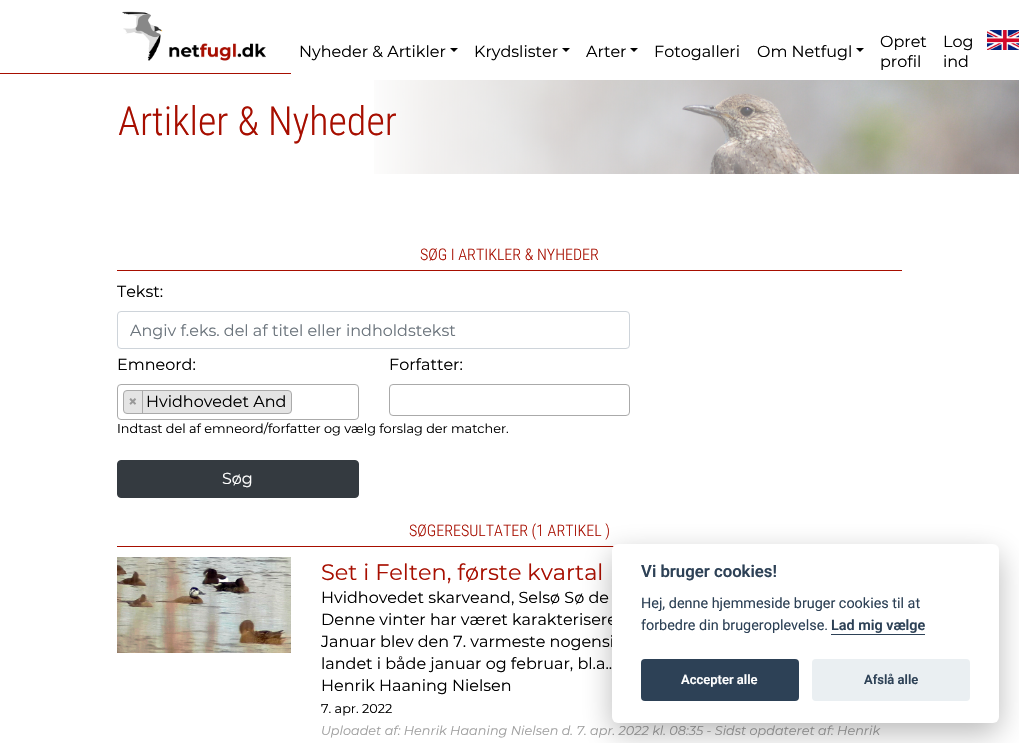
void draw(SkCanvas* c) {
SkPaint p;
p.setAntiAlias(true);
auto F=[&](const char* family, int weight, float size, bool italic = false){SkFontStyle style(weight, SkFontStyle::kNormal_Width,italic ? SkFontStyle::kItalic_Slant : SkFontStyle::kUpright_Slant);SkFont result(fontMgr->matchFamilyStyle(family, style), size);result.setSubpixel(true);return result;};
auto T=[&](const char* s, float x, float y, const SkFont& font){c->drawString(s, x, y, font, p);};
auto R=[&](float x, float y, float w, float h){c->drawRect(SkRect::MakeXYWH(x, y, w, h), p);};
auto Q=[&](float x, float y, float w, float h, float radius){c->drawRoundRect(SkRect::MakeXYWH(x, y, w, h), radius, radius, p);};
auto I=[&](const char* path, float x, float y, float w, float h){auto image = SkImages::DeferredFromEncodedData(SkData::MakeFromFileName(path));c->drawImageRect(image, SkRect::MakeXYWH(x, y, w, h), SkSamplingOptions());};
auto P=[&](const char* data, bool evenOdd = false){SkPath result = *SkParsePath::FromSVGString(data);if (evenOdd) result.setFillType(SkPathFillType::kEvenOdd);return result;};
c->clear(0xffffffff);
p.setColor(0xffa70e00);
R(0,73,291,1);
I("1.png",122,11,144,50);
auto f1 = F("Montserrat",400,16);
p.setColor(0xff000000);
T("Nyheder & Artikler",299,57,f1);
c->drawPath(P("M450 48h8l-4 4z"),p);
T("Krydslister",474,57,f1);
c->drawPath(P("M562 48h8l-4 4z"),p);
T("Arter",586,57,f1);
c->drawPath(P("M630 48h8l-4 4z"),p);
T("Fotogalleri",654,57,f1);
T("Om Netfugl",757,57,f1);
c->drawPath(P("M856 48h8l-4 4z"),p);
T("Opret",880,47,f1);
T("profil",880,67,f1);
T("Log",943,47,f1);
T("ind",943,67,f1);
I("2.png",987,30,32,20);
I("3.png",374,80,645,94);
auto f2 = F("Roboto Condensed",300,40);
p.setColor(0xffa70e00);
T("Artikler & Nyheder",118,135,f2);
auto f3 = F("Roboto Condensed",300,16);
T("SØG I ARTIKLER & NYHEDER",420,260,f3);
R(117,270,785,1);
p.setColor(0xff000000);
T("Tekst:",117,297,f1);
p.setStroke(true);
p.setStrokeWidth(1);
p.setColor(0xffced4da);
c->drawRoundRect(SkRect::MakeXYWH(117.5,311.5,512,37),3.5,3.5,p);
p.setStroke(false);
p.setColor(0xff6c757d);
T("Angiv f.eks. del af titel eller indholdstekst",130,336,f1);
p.setColor(0xff000000);
T("Emneord:",117,370,f1);
p.setStroke(true);
p.setColor(0xffaaaaaa);
c->drawRoundRect(SkRect::MakeXYWH(117.5,384.5,241,35),3.5,3.5,p);
p.setStroke(false);
p.setColor(0xffe4e4e4);
c->drawRoundRect(SkRect::MakeXYWH(123.5,390.5,168,23),3.5,3.5,p);
p.setStroke(true);
p.setColor(0xffaaaaaa);
c->drawRoundRect(SkRect::MakeXYWH(123.5,390.5,168,23),3.5,3.5,p);
p.setStroke(false);
R(142,391,1,22);
auto f4 = F("Montserrat",700,16);
p.setColor(0xff999999);
T("×",128,407,f4);
p.setColor(0xff000000);
T("Hvidhovedet And",146,407,f1);
T("Forfatter:",389,370,f1);
p.setStroke(true);
p.setColor(0xffaaaaaa);
c->drawRoundRect(SkRect::MakeXYWH(389.5,384.5,240,31),3.5,3.5,p);
auto f5 = F("Montserrat",400,12.8);
p.setStroke(false);
p.setColor(0xff000000);
T("Indtast del af emneord/forfatter og vælg forslag der matcher.",117,433,f5);
p.setColor(0xff343a40);
c->drawRoundRect(SkRect::MakeXYWH(117.5,460.5,241,37),3.5,3.5,p);
p.setStroke(true);
c->drawRoundRect(SkRect::MakeXYWH(117.5,460.5,241,37),3.5,3.5,p);
p.setStroke(false);
p.setColor(0xffffffff);
T("Søg",222,484,f1);
p.setColor(0xffa70e00);
T("SØGERESULTATER (1 ARTIKEL )",409,536,f3);
R(117,546,497,1);
I("4.png",117,557,174,96);
auto f6 = F("Montserrat",400,22.4);
T("Set i Felten, første kvartal",321,580,f6);
p.setColor(0xff000000);
T("Hvidhovedet skarveand, Selsø Sø de",321,603,f1);
T("Denne vinter har været karakterisere",321,625,f1);
T("Januar blev den 7. varmeste nogensi",321,647,f1);
T("landet i både januar og februar, bl.a..",321,669,f1);
T("Henrik Haaning Nielsen",321,691,f1);
T("7. apr. 2022",321,713,f5);
auto f7 = F("Montserrat",400,12.8,true);
p.setColor(0xff9f9f9f);
T("Uploadet af: Henrik Haaning Nielsen d. 7. apr. 2022 kl. 08:35 - Sidst opdateret af: Henrik",321,735,f7);
p.setColor(0x47020203);
p.setMaskFilter(SkMaskFilter::MakeBlur(kNormal_SkBlurStyle, 15));
c->drawRoundRect(SkRect::MakeXYWH(612,554,387,179),6,6,p);
p.setMaskFilter(nullptr);
p.setColor(0xffffffff);
Q(612,544,387,179,6);
auto f8 = F("Roboto",600,16.75);
p.setColor(0xff2d4156);
T("Vi bruger cookies!",641,577,f8);
auto f9 = F("Roboto",400,14.4);
T("Hej, denne hjemmeside bruger cookies til at",641,608,f9);
T("forbedre din brugeroplevelse.",641,630,f9);
auto f10 = F("Roboto",600,14.4);
T("Lad mig vælge",831,630,f10);
R(831,634,94,1);
Q(641,659,158,42,4);
auto f11 = F("Roboto",600,13);
p.setColor(0xffffffff);
T("Accepter alle",681,684,f11);
p.setColor(0xffeaeff2);
Q(812,659,158,42,4);
p.setColor(0xff2d4156);
T("Afslå alle",864,684,f11);
}
